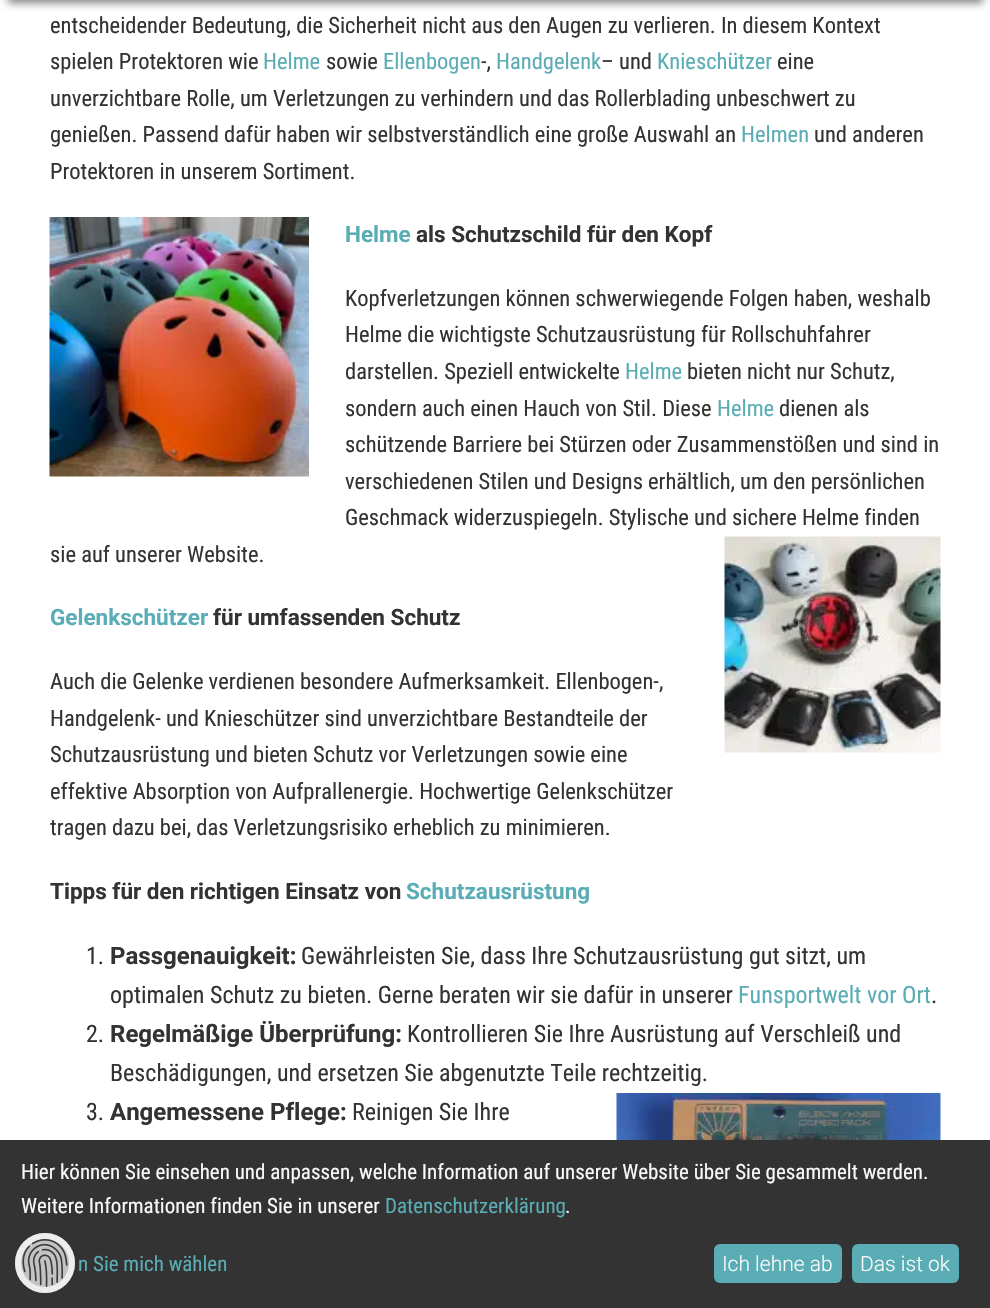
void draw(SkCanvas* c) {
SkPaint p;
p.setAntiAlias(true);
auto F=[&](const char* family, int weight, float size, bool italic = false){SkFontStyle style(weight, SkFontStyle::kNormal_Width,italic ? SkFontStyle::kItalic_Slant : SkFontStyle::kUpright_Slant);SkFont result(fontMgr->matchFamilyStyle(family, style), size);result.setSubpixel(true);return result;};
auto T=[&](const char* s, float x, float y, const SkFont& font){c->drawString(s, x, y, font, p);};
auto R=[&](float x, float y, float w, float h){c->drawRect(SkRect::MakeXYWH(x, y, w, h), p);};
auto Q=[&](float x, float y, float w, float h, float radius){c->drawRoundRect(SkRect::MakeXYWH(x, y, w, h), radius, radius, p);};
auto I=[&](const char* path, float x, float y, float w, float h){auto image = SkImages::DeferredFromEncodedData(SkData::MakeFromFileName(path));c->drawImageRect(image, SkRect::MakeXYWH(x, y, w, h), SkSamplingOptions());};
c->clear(0xffffffff);
p.setColor(0xff808080);
p.setMaskFilter(SkMaskFilter::MakeBlur(kNormal_SkBlurStyle, 4));
c->drawRect(SkRect::MakeXYWH(8,-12,975,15),p);
p.setMaskFilter(nullptr);
auto f1 = F("Roboto Condensed",400,22.5);
p.setColor(0xff333333);
T("entscheidender Bedeutung, die Sicherheit nicht aus den Augen zu verlieren. In diesem Kontext",50,33,f1);
T("spielen Protektoren wie",50,69,f1);
p.setColor(0xff5aadb5);
T("Helme",263,69,f1);
p.setColor(0xff333333);
T("sowie",326,69,f1);
p.setColor(0xff5aadb5);
T("Ellenbogen",383,69,f1);
p.setColor(0xff333333);
T("-,",481,69,f1);
p.setColor(0xff5aadb5);
T("Handgelenk",496,69,f1);
p.setColor(0xff333333);
T("– und",601,69,f1);
p.setColor(0xff5aadb5);
T("Knieschützer",657,69,f1);
p.setColor(0xff333333);
T("eine",777,69,f1);
T("unverzichtbare Rolle, um Verletzungen zu verhindern und das Rollerblading unbeschwert zu",50,106,f1);
T("genießen. Passend dafür haben wir selbstverständlich eine große Auswahl an",50,142,f1);
p.setColor(0xff5aadb5);
T("Helmen",741,142,f1);
p.setColor(0xff333333);
T("und anderen",814,142,f1);
T("Protektoren in unserem Sortiment.",50,179,f1);
I("1.png",49,217,260,260);
auto f2 = F("Roboto",700,22.5);
p.setColor(0xff5aadb5);
T("Helme",345,242,f2);
p.setColor(0xff333333);
T("als Schutzschild für den Kopf",416,242,f2);
T("Kopfverletzungen können schwerwiegende Folgen haben, weshalb",345,306,f1);
T("Helme die wichtigste Schutzausrüstung für Rollschuhfahrer",345,342,f1);
T("darstellen. Speziell entwickelte",345,379,f1);
p.setColor(0xff5aadb5);
T("Helme",625,379,f1);
p.setColor(0xff333333);
T("bieten nicht nur Schutz,",687,379,f1);
T("sondern auch einen Hauch von Stil. Diese",345,416,f1);
p.setColor(0xff5aadb5);
T("Helme",717,416,f1);
p.setColor(0xff333333);
T("dienen als",779,416,f1);
T("schützende Barriere bei Stürzen oder Zusammenstößen und sind in",345,452,f1);
T("verschiedenen Stilen und Designs erhältlich, um den persönlichen",345,489,f1);
T("Geschmack widerzuspiegeln. Stylische und sichere Helme finden",345,525,f1);
T("sie auf unserer Website.",50,562,f1);
I("2.png",724,536,217,217);
p.setColor(0xff5aadb5);
T("Gelenkschützer",50,625,f2);
p.setColor(0xff333333);
T("für umfassenden Schutz",213,625,f2);
T("Auch die Gelenke verdienen besondere Aufmerksamkeit. Ellenbogen-,",50,689,f1);
T("Handgelenk- und Knieschützer sind unverzichtbare Bestandteile der",50,726,f1);
T("Schutzausrüstung und bieten Schutz vor Verletzungen sowie eine",50,762,f1);
T("effektive Absorption von Aufprallenergie. Hochwertige Gelenkschützer",50,799,f1);
T("tragen dazu bei, das Verletzungsrisiko erheblich zu minimieren.",50,835,f1);
T("Tipps für den richtigen Einsatz von",50,899,f2);
p.setColor(0xff5aadb5);
T("Schutzausrüstung",406,899,f2);
auto f3 = F("Roboto Condensed",400,24);
p.setColor(0xff333333);
T("1.",86,964,f3);
auto f4 = F("Roboto",700,24);
T("Passgenauigkeit:",110,964,f4);
T("Gewährleisten Sie, dass Ihre Schutzausrüstung gut sitzt, um",301,964,f3);
T("optimalen Schutz zu bieten. Gerne beraten wir sie dafür in unserer",110,1003,f3);
p.setColor(0xff5aadb5);
T("Funsportwelt vor Ort",738,1003,f3);
p.setColor(0xff333333);
T(".",931,1003,f3);
T("2.",86,1042,f3);
T("Regelmäßige Überprüfung:",110,1042,f4);
T("Kontrollieren Sie Ihre Ausrüstung auf Verschleiß und",407,1042,f3);
T("Beschädigungen, und ersetzen Sie abgenutzte Teile rechtzeitig.",110,1081,f3);
I("3.png",616,1093,325,47);
T("3.",86,1120,f3);
T("Angemessene Pflege:",110,1120,f4);
T("Reinigen Sie Ihre",352,1120,f3);
R(0,1140,990,168);
auto f5 = F("Roboto Condensed",400,21);
p.setColor(0xfffafafa);
T("Hier können Sie einsehen und anpassen, welche Information auf unserer Website über Sie gesammelt werden.",21,1179,f5);
T("Weitere Informationen finden Sie in unserer",21,1213,f5);
p.setColor(0xff5aadb5);
T("Datenschutzerklärung",385,1213,f5);
p.setColor(0xfffafafa);
T(".",565,1213,f5);
p.setColor(0xff5aadb5);
T("n Sie mich wählen",78,1271,f5);
Q(714,1244,128,39,6);
auto f6 = F("Roboto",300,21);
p.setColor(0xfffafafa);
T("Ich lehne ab",722,1271,f6);
p.setColor(0xff5aadb5);
Q(852,1244,107,39,6);
p.setColor(0xfffafafa);
T("Das ist ok",860,1271,f6);
p.setColor(0xb3ffffff);
c->drawCircle(45,1263,30,p);
p.setStroke(true);
p.setStrokeWidth(6);
c->drawCircle(45,1263,27,p);
I("4.png",22,1239,46,48);
}
